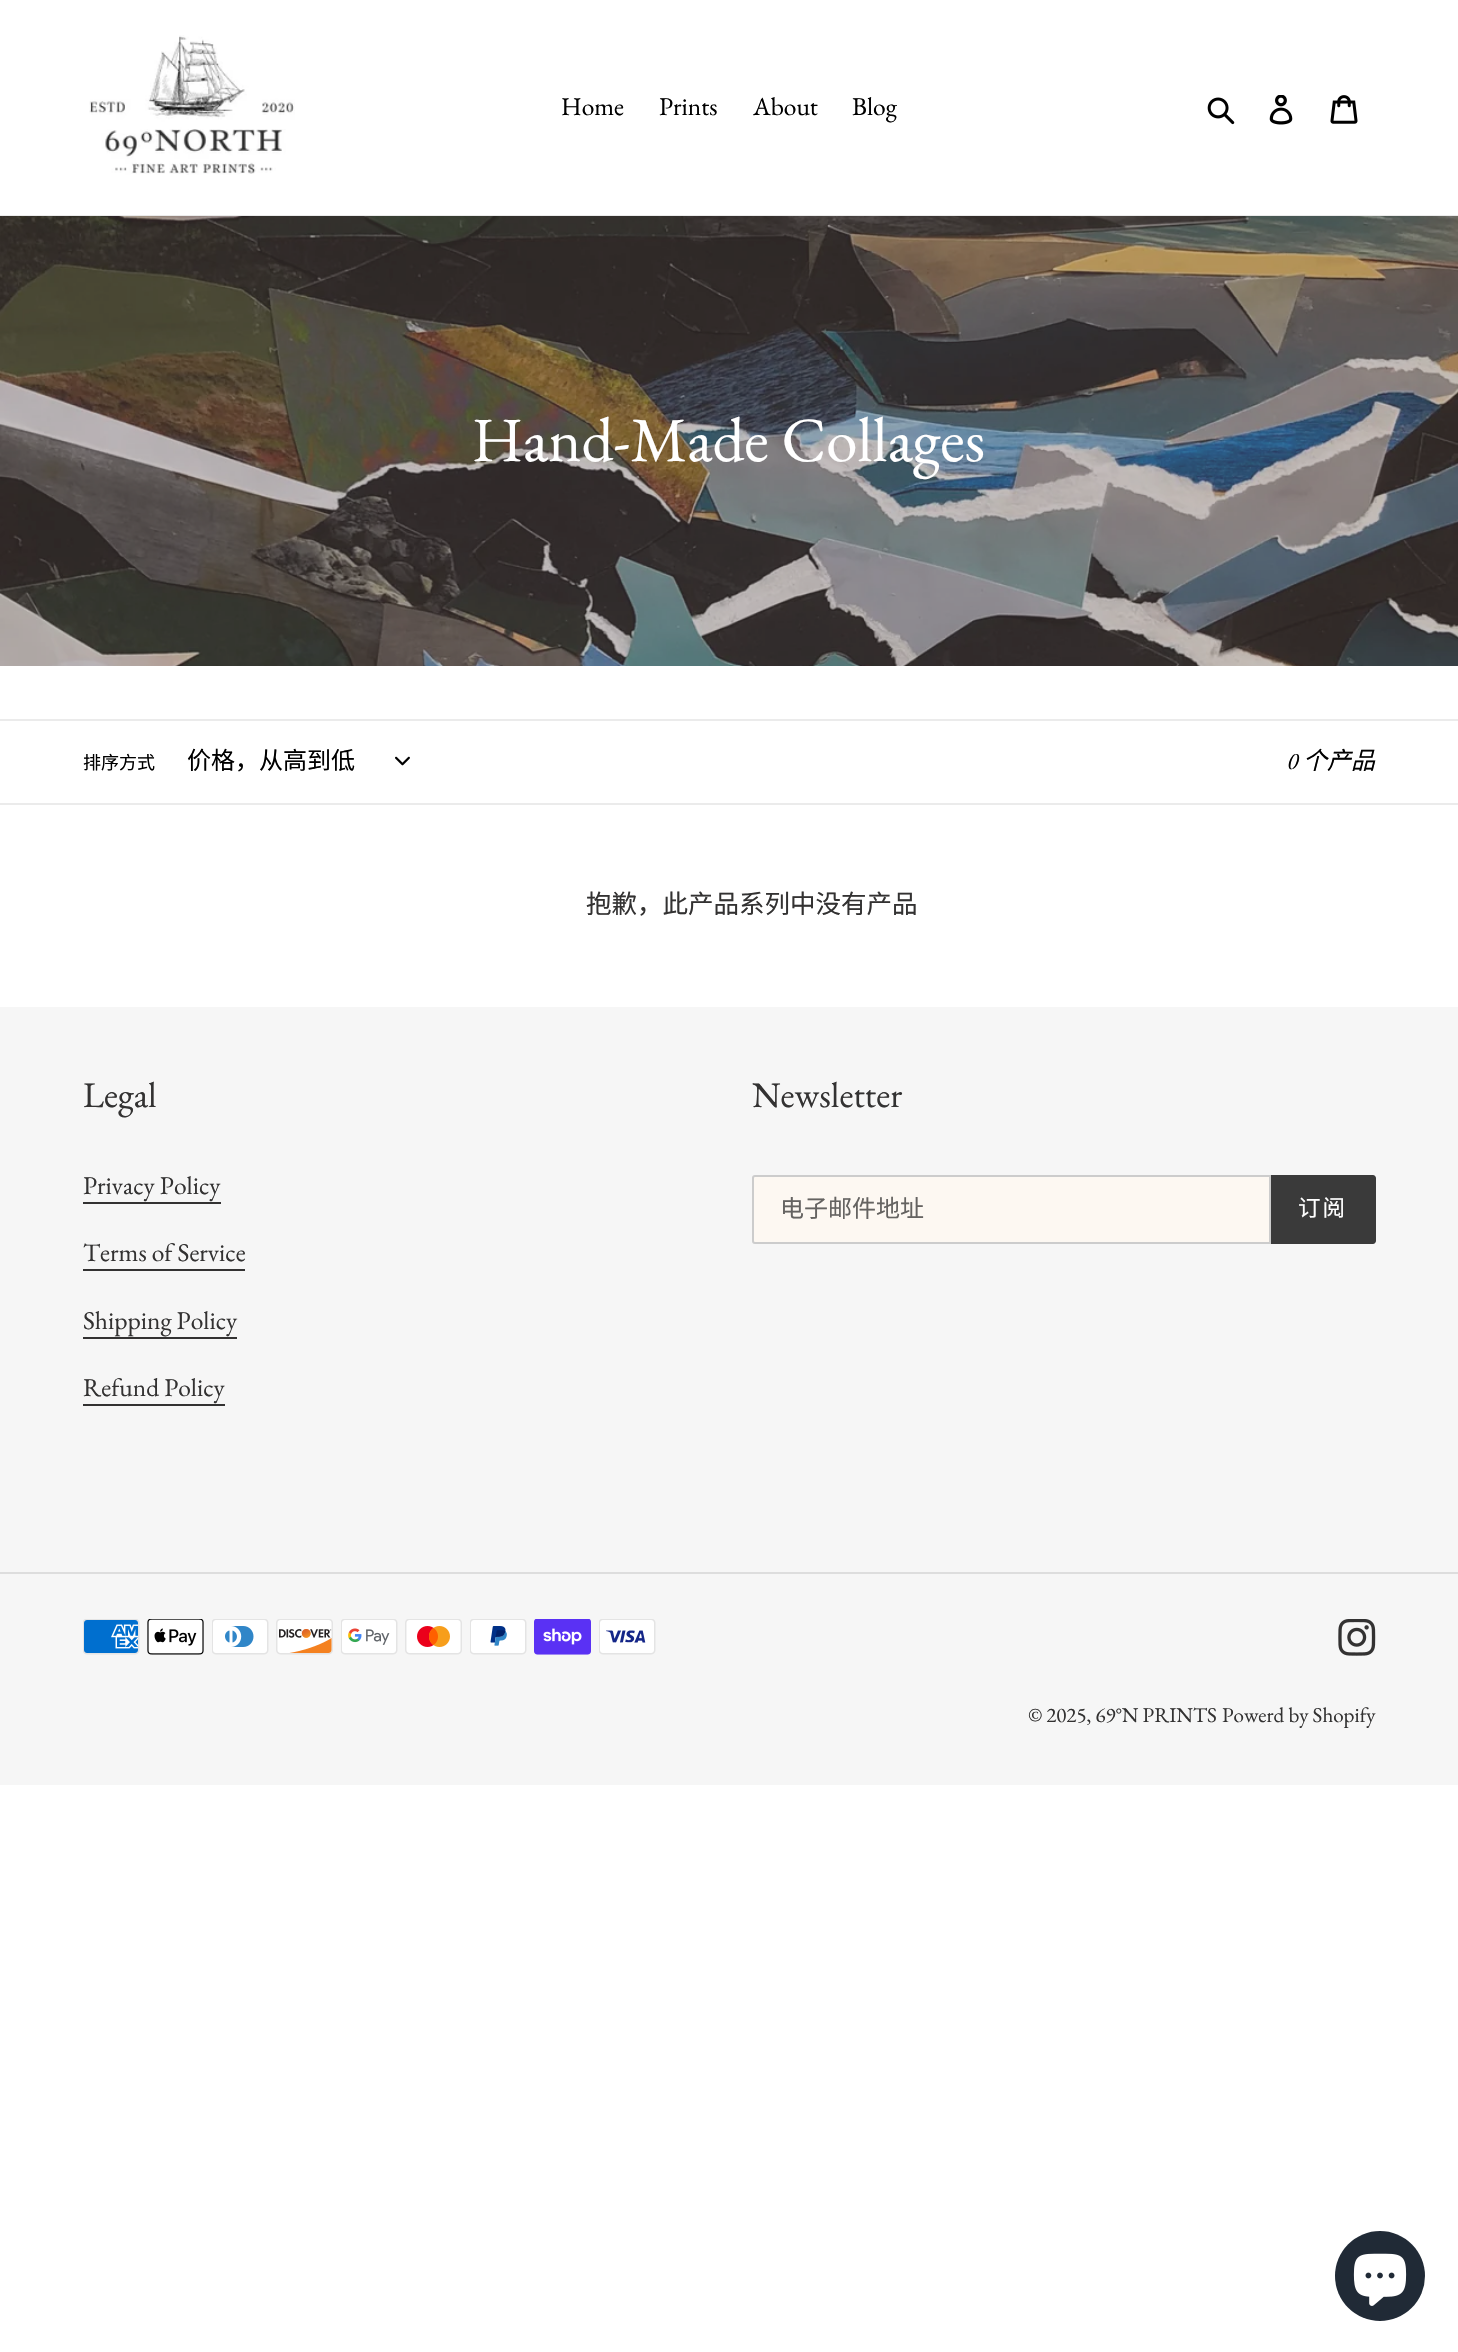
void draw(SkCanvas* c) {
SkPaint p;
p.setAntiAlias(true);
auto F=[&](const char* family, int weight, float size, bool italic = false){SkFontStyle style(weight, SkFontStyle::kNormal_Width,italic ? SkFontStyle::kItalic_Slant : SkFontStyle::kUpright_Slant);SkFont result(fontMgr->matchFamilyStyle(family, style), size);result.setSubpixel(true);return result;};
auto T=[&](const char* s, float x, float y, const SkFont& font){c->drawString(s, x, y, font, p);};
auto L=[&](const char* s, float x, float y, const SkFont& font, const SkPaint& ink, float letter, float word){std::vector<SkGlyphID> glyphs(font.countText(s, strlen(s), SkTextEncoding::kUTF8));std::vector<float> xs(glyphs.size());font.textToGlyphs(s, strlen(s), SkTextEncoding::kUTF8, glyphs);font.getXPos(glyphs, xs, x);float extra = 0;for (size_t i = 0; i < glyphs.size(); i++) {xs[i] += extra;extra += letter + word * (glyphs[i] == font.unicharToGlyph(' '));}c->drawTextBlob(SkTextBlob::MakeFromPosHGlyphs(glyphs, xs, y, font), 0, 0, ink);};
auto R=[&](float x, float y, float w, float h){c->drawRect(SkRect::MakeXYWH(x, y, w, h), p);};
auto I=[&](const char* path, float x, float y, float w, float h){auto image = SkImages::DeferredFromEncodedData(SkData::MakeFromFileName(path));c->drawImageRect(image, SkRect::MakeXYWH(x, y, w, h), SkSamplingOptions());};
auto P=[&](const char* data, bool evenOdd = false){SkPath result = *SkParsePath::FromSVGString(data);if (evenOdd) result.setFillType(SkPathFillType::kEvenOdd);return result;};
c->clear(0xffffffff);
p.setColor(0xffebebeb);
R(0,215,1458,1);
I("1.png",89,35,206,140);
auto f1 = F("EB Garamond",400,25.5);
p.setColor(0xff000000);
T("Home",561,115,f1);
T("Prints",659,115,f1);
T("About",753,115,f1);
T("Blog",852,115,f1);
I("2.png",1207,97,28,28);
I("3.png",1269,95,24,30);
I("4.png",1330,95,28,29);
I("5.png",0,216,1458,450);
auto f2 = F("EB Garamond",400,63);
p.setColor(0xffffffff);
T("Hand-Made Collages",472,461,f2);
p.setColor(0xffebebeb);
R(0,719,1458,2);
R(0,803,1458,2);
auto f3 = F("Noto Sans CJK SC",400,18);
p.setColor(0xff000000);
T("排序方式",83,769,f3);
auto f4 = F("Noto Sans CJK SC",400,24);
T("价格，从高到低",187,769,f4);
I("6.png",395,756,15,10);
auto f5 = F("EB Garamond",400,24,true);
T("0",1287,769,f5);
auto f6 = F("Noto Sans CJK SC",400,24,true);
T("个产品",1303,769,f6);
auto f7 = F("Noto Sans CJK SC",400,25.5);
p.setColor(0xff333232);
T("抱歉，此产品系列中没有产品",586,913,f7);
p.setColor(0xfff6f6f6);
R(0,1007,1458,778);
auto f8 = F("EB Garamond",400,36);
p.setColor(0xff333232);
T("Legal",83,1107,f8);
T("Privacy Policy",83,1194,f1);
R(83,1202,138,2);
T("Terms of Service",83,1261,f1);
R(83,1269,162,2);
T("Shipping Policy",83,1329,f1);
R(83,1337,154,2);
T("Refund Policy",83,1396,f1);
R(83,1404,142,2);
T("Newsletter",752,1107,f8);
p.setColor(0xfffdf8f2);
c->drawPath(P("M755 1176h515v67h-515c-1 0-2-1-2-2v-63c0-1 1-2 2-2z"),p);
p.setStroke(true);
p.setStrokeWidth(2);
p.setColor(0xffcccccc);
c->drawPath(P("M755 1176h515v67h-515c-1 0-2-1-2-2v-63c0-1 1-2 2-2z"),p);
p.setStroke(false);
p.setColor(0xff656361);
T("电子邮件地址",780,1217,f4);
p.setColor(0xff3a3a3a);
c->drawPath(P("M1271 1175h102c1.5 0 3 1.5 3 3v63c0 1.5-1.5 3-3 3h-102z"),p);
auto f9 = F("Noto Sans CJK SC",400,22.5);
p.setColor(0xffffffff);
L("订阅",1298,1216,f9,p,2,0);
p.setColor(0xffdddddd);
R(0,1572,1458,2);
I("7.png",83,1619,57,36);
I("8.png",147,1619,57,36);
I("9.png",212,1619,57,36);
I("10.png",276,1619,57,36);
I("11.png",341,1619,57,36);
I("12.png",405,1619,57,36);
I("13.png",470,1619,57,36);
I("14.png",534,1619,57,36);
I("15.png",599,1619,57,36);
I("16.png",1338,1619,38,37);
auto f10 = F("EB Garamond",400,21);
p.setColor(0xff333232);
T("© 2025, 69°N PRINTS",1028,1722,f10);
T("Powerd by Shopify",1222,1722,f10);
p.setColor(0xff202a36);
c->drawCircle(1380,2276,45,p);
I("17.png",1353,2253,54,53);
}
